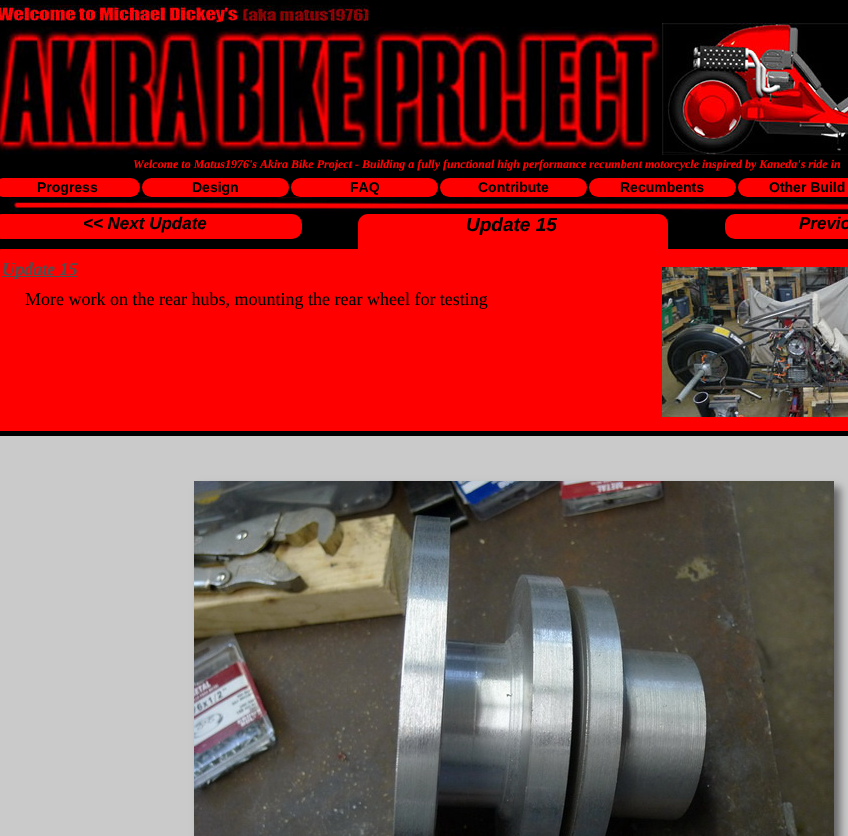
void draw(SkCanvas* c) {
SkPaint p;
p.setAntiAlias(true);
auto F=[&](const char* family, int weight, float size, bool italic = false){SkFontStyle style(weight, SkFontStyle::kNormal_Width,italic ? SkFontStyle::kItalic_Slant : SkFontStyle::kUpright_Slant);SkFont result(fontMgr->matchFamilyStyle(family, style), size);result.setSubpixel(true);return result;};
auto T=[&](const char* s, float x, float y, const SkFont& font){c->drawString(s, x, y, font, p);};
auto R=[&](float x, float y, float w, float h){c->drawRect(SkRect::MakeXYWH(x, y, w, h), p);};
auto Q=[&](float x, float y, float w, float h, float radius){c->drawRoundRect(SkRect::MakeXYWH(x, y, w, h), radius, radius, p);};
auto I=[&](const char* path, float x, float y, float w, float h){auto image = SkImages::DeferredFromEncodedData(SkData::MakeFromFileName(path));c->drawImageRect(image, SkRect::MakeXYWH(x, y, w, h), SkSamplingOptions());};
auto P=[&](const char* data, bool evenOdd = false){SkPath result = *SkParsePath::FromSVGString(data);if (evenOdd) result.setFillType(SkPathFillType::kEvenOdd);return result;};
c->clear(0xff000000);
I("1.png",0,5,369,18);
I("2.png",0,27,662,127);
I("3.png",662,23,186,132);
auto f1 = F("Liberation Serif",700,12,true);
p.setColor(0xffff0000);
T("Welcome to Matus1976's Akira Bike Project - Building a fully functional high performance recumbent motorcycle inspired by Kaneda's ride in",133,168,f1);
Q(-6,178,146,19,9.5);
auto f2 = F("Liberation Sans",700,14);
p.setColor(0xff000000);
T("Progress",37,192,f2);
p.setColor(0xffff0000);
Q(142,178,147,19,9.5);
p.setColor(0xff000000);
T("Design",192,192,f2);
p.setColor(0xffff0000);
Q(291,178,147,19,9.5);
p.setColor(0xff000000);
T("FAQ",350,192,f2);
p.setColor(0xffff0000);
Q(440,178,147,19,9.5);
p.setColor(0xff000000);
T("Contribute",478,192,f2);
p.setColor(0xffff0000);
Q(589,178,147,19,9.5);
p.setColor(0xff000000);
T("Recumbents",620,192,f2);
p.setColor(0xffff0000);
Q(738,178,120,19,9.5);
p.setColor(0xff000000);
T("Other Build",769,192,f2);
I("4.png",9,197,839,15);
p.setColor(0xffff0000);
Q(-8,214,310,25,10);
auto f3 = F("Liberation Sans",700,17,true);
p.setColor(0xff000000);
T("<< Next Update",83,229,f3);
p.setColor(0xffff0000);
c->drawPath(P("M368 214h290c5.5 0 10 4.5 10 10v25h-310v-25c0-5.5 4.5-10 10-10z"),p);
auto f4 = F("Liberation Sans",700,19,true);
p.setColor(0xff000000);
T("Update 15",466,231,f4);
p.setColor(0xffff0000);
Q(725,214,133,25,10);
p.setColor(0xff000000);
T("Previo",799,229,f3);
p.setColor(0xffff0000);
c->drawPath(P("M2 249h846c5.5 0 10 4.5 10 10v172h-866v-172c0-5.5 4.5-10 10-10z"),p);
p.setColor(0xff4f4f4f);
R(2,276,76,1);
auto f5 = F("Liberation Serif",700,18,true);
T("Update 15",2,275,f5);
p.setColor(0xffcacaca);
R(0,436,848,400);
p.setColor(0x80000000);
p.setMaskFilter(SkMaskFilter::MakeBlur(kNormal_SkBlurStyle, 4));
c->drawRect(SkRect::MakeXYWH(200,487,640,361),p);
p.setMaskFilter(nullptr);
I("5.png",194,481,640,355);
I("6.png",662,267,186,150);
auto f6 = F("Liberation Serif",400,18);
p.setColor(0xff000000);
T("More work on the rear hubs, mounting the rear wheel for testing",25,305,f6);
}
